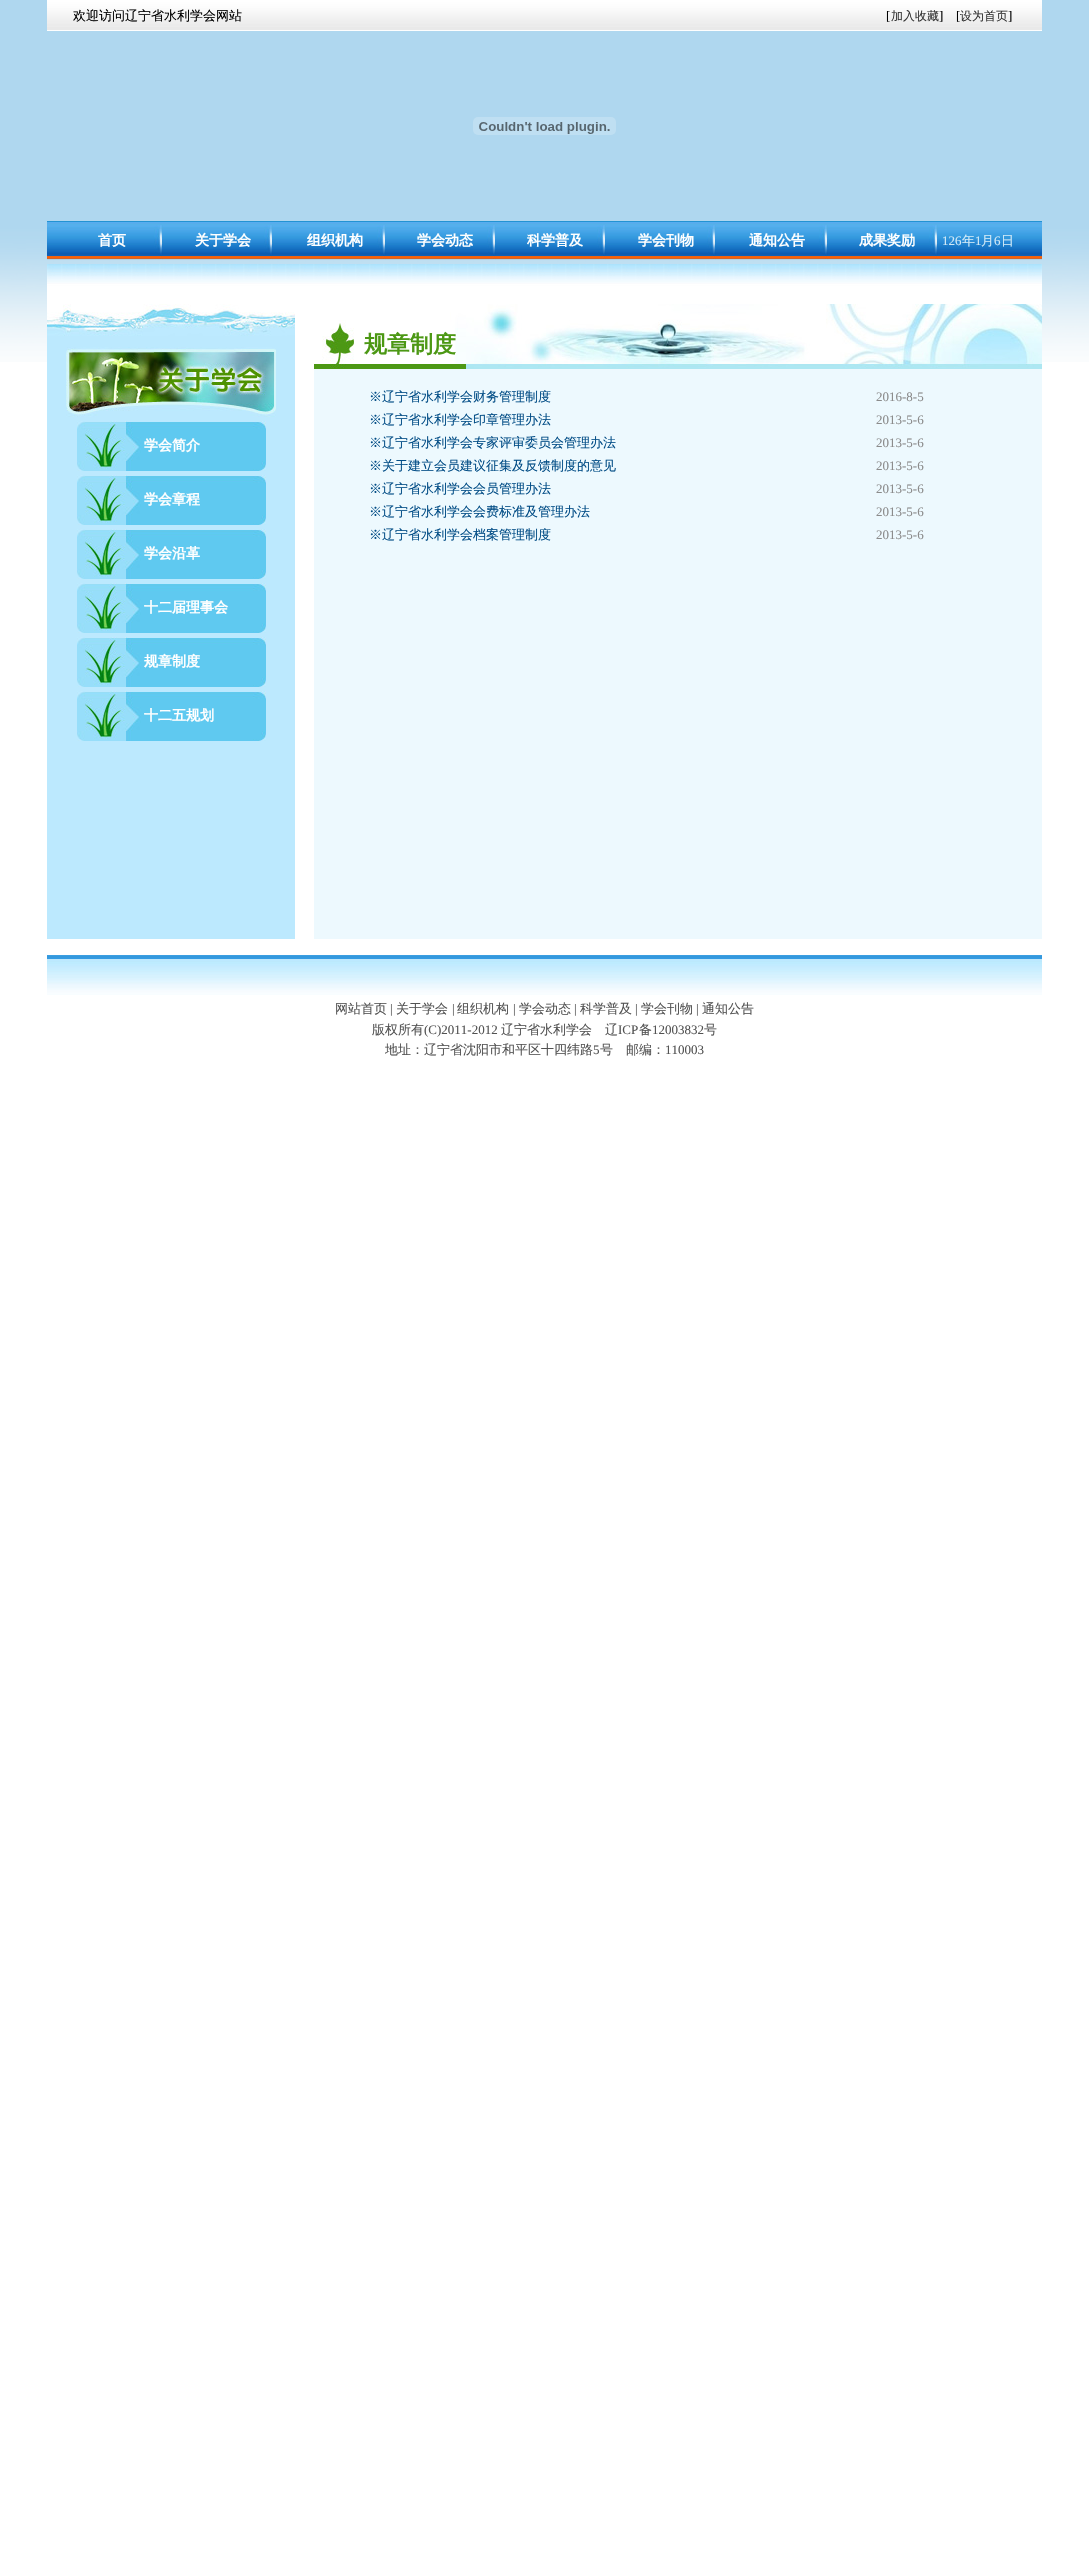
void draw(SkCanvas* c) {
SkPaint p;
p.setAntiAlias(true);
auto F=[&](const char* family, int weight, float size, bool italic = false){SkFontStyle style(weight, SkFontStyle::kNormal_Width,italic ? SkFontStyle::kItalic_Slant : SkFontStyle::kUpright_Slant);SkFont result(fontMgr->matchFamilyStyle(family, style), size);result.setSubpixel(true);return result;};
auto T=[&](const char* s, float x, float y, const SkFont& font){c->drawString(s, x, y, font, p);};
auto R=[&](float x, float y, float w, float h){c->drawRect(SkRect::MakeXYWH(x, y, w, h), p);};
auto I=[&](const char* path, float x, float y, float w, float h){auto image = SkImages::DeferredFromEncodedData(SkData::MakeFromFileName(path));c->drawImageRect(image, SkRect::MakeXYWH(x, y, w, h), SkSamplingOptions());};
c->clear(0xffffffff);
I("1.png",0,0,1089,362);
I("2.png",47,0,995,31);
auto f1 = F("WenQuanYi Zen Hei",500,13);
p.setColor(0xff000000);
T("欢迎访问辽宁省水利学会网站",73,20,f1);
auto f2 = F("Liberation Serif",400,13);
T("[",886,20,f2);
auto f3 = F("WenQuanYi Zen Hei",500,12);
p.setColor(0xff343434);
T("加入收藏",891,20,f3);
p.setColor(0xff000000);
T("]",939,20,f2);
T("[",956,20,f2);
p.setColor(0xff343434);
T("设为首页",960,20,f3);
p.setColor(0xff000000);
T("]",1008,20,f2);
I("3.png",473,117,143,18);
I("4.png",47,221,995,39);
I("5.png",154,225,9,35);
auto f4 = F("WenQuanYi Zen Hei",700,14);
p.setColor(0xffffffff);
T("首页",98,245,f4);
I("5.png",264,225,9,35);
T("关于学会",195,245,f4);
I("5.png",377,225,9,35);
T("组织机构",307,245,f4);
I("5.png",487,225,9,35);
T("学会动态",417,245,f4);
I("5.png",597,225,9,35);
T("科学普及",527,245,f4);
I("5.png",707,225,9,35);
T("学会刊物",638,245,f4);
I("5.png",819,225,9,35);
T("通知公告",749,245,f4);
I("5.png",929,225,9,35);
T("成果奖励",859,245,f4);
p.setColor(0xffd0e9f7);
T("126",942,245,f2);
T("年",962,245,f1);
T("1",975,245,f2);
T("月",981,245,f1);
T("6",994,245,f2);
T("日",1001,245,f1);
I("6.png",47,264,995,32);
p.setColor(0xffffffff);
R(47,296,995,66);
p.setColor(0xffbce9fe);
R(47,336,248,603);
I("7.png",47,296,248,40);
I("8.png",66,347,210,70);
I("9.png",77,421,189,50);
p.setColor(0xffffffff);
T("学会简介",144,450,f4);
I("9.png",77,475,189,50);
T("学会章程",144,504,f4);
I("9.png",77,529,189,50);
T("学会沿革",144,558,f4);
I("9.png",77,583,189,50);
T("十二届理事会",144,612,f4);
I("9.png",77,637,189,50);
T("规章制度",144,666,f4);
I("9.png",77,691,189,50);
T("十二五规划",144,720,f4);
p.setColor(0xffedf9fe);
R(314,369,728,570);
I("10.png",314,296,728,73);
auto f5 = F("WenQuanYi Zen Hei",700,23);
p.setColor(0xff4c9814);
T("规章制度",364,352,f5);
p.setColor(0xff024d86);
T("※辽宁省水利学会财务管理制度",369,401,f1);
p.setColor(0xff8b8b8b);
T("2016-8-5",876,401,f2);
p.setColor(0xff024d86);
T("※辽宁省水利学会印章管理办法",369,424,f1);
p.setColor(0xff8b8b8b);
T("2013-5-6",876,424,f2);
p.setColor(0xff024d86);
T("※辽宁省水利学会专家评审委员会管理办法",369,447,f1);
p.setColor(0xff8b8b8b);
T("2013-5-6",876,447,f2);
p.setColor(0xff024d86);
T("※关于建立会员建议征集及反馈制度的意见",369,470,f1);
p.setColor(0xff8b8b8b);
T("2013-5-6",876,470,f2);
p.setColor(0xff024d86);
T("※辽宁省水利学会会员管理办法",369,493,f1);
p.setColor(0xff8b8b8b);
T("2013-5-6",876,493,f2);
p.setColor(0xff024d86);
T("※辽宁省水利学会会费标准及管理办法",369,516,f1);
p.setColor(0xff8b8b8b);
T("2013-5-6",876,516,f2);
p.setColor(0xff024d86);
T("※辽宁省水利学会档案管理制度",369,539,f1);
p.setColor(0xff8b8b8b);
T("2013-5-6",876,539,f2);
I("11.png",47,955,995,40);
p.setColor(0xff525252);
T("网站首页",335,1013,f1);
T("|",390,1013,f2);
T("关于学会",396,1013,f1);
T("|",452,1013,f2);
T("组织机构",457,1013,f1);
T("|",513,1013,f2);
T("学会动态",519,1013,f1);
T("|",574,1013,f2);
T("科学普及",580,1013,f1);
T("|",635,1013,f2);
T("学会刊物",641,1013,f1);
T("|",696,1013,f2);
T("通知公告",702,1013,f1);
T("版权所有",372,1034,f1);
T("(C)2011-2012",424,1034,f2);
T("辽宁省水利学会　辽",501,1034,f1);
T("ICP",618,1034,f2);
T("备",639,1034,f1);
T("12003832",652,1034,f2);
T("号",704,1034,f1);
T("地址：辽宁省沈阳市和平区十四纬路",385,1054,f1);
T("5",593,1054,f2);
T("号　邮编：",600,1054,f1);
T("110003",665,1054,f2);
}
